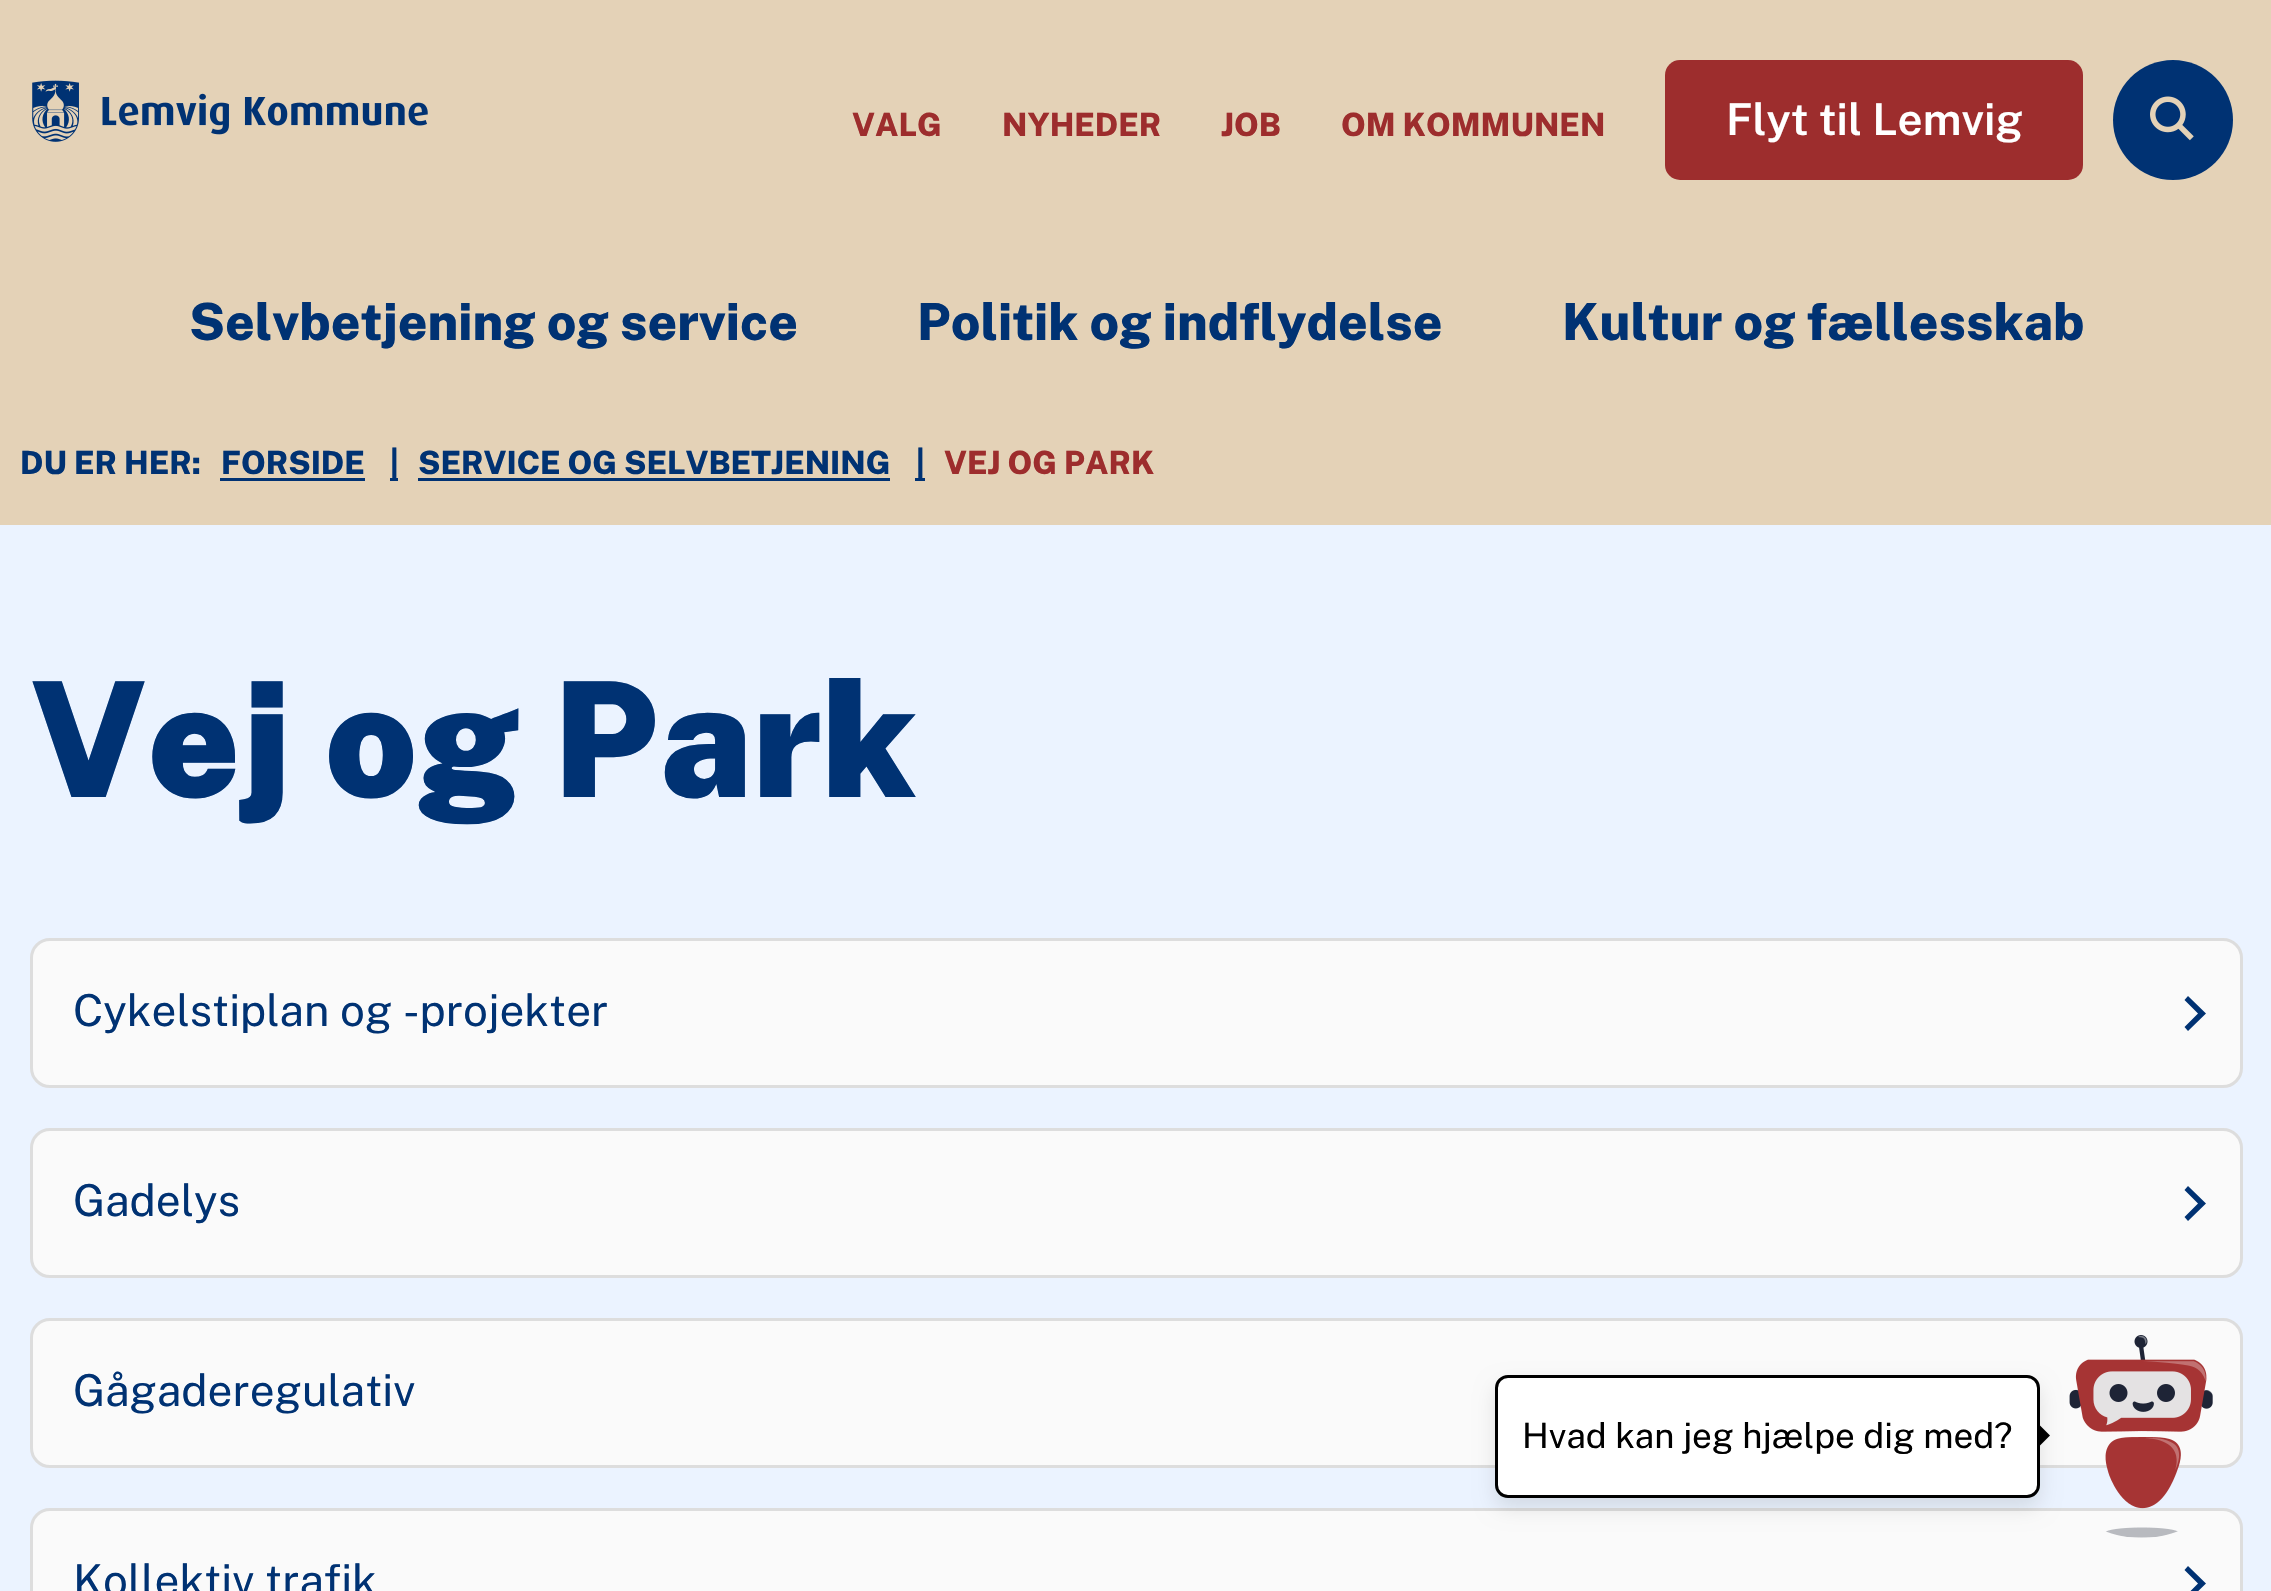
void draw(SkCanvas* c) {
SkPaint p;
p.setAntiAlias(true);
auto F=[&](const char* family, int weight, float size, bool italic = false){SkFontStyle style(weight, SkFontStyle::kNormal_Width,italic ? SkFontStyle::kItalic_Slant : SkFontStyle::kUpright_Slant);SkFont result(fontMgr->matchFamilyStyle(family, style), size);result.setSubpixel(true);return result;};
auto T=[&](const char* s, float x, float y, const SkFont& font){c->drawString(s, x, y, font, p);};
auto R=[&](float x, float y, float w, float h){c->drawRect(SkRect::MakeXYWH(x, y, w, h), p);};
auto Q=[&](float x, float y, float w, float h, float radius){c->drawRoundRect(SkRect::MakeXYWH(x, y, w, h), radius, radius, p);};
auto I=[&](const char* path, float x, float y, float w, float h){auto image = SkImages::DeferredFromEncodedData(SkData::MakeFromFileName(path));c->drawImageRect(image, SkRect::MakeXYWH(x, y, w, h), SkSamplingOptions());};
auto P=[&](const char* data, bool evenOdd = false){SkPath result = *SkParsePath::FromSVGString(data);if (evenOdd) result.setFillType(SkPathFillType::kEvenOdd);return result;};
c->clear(0xffe4d2b7);
I("1.png",32,80,396,62);
auto f1 = F("Public Sans",800,32);
p.setColor(0xff9d2d2d);
T("VALG",852,136,f1);
T("NYHEDER",1002,136,f1);
T("JOB",1221,136,f1);
T("OM KOMMUNEN",1341,136,f1);
Q(1665,60,418,120,15);
auto f2 = F("Public Sans",600,44);
p.setColor(0xffffffff);
T("Flyt til Lemvig",1726,135,f2);
p.setColor(0xff003273);
c->drawCircle(2173,120,60,p);
I("2.png",2150,96,44,45);
auto f3 = F("Public Sans",800,51.25);
T("Selvbetjening og service",189,340,f3);
T("Politik og indflydelse",917,340,f3);
T("Kultur og fællesskab",1562,340,f3);
T("DU ER HER:",20,474,f1);
T("FORSIDE",221,474,f1);
R(220,478,145,3);
R(390,478,8,3);
T("|",390,474,f1);
T("SERVICE OG SELVBETJENING",418,474,f1);
R(418,478,472,3);
R(915,478,10,3);
T("|",916,474,f1);
p.setColor(0xff9d2d2d);
T("VEJ OG PARK",944,474,f1);
p.setColor(0xffebf3ff);
R(0,525,2271,1066);
auto f4 = F("Public Sans",900,160);
p.setColor(0xff003273);
T("Vej og Park",30,797,f4);
p.setColor(0xfffafafa);
c->drawRoundRect(SkRect::MakeXYWH(31.5,939.5,2210,147),18.5,18.5,p);
p.setStroke(true);
p.setStrokeWidth(3);
p.setColor(0xffdddddd);
c->drawRoundRect(SkRect::MakeXYWH(31.5,939.5,2210,147),18.5,18.5,p);
auto f5 = F("Public Sans",400,44);
p.setStroke(false);
p.setColor(0xff003273);
T("Cykelstiplan og -projekter",73,1026,f5);
c->drawPath(P("M2206 1013.5l-18 17.5l-3.5-4l13.5-13.5l-13.5-13.5l3.5-4z"),p);
p.setColor(0xfffafafa);
c->drawRoundRect(SkRect::MakeXYWH(31.5,1129.5,2210,147),18.5,18.5,p);
p.setStroke(true);
p.setColor(0xffdddddd);
c->drawRoundRect(SkRect::MakeXYWH(31.5,1129.5,2210,147),18.5,18.5,p);
p.setStroke(false);
p.setColor(0xff003273);
T("Gadelys",73,1216,f5);
c->drawPath(P("M2206 1203.5l-18 17.5l-3.5-4l13.5-13.5l-13.5-13.5l3.5-4z"),p);
p.setColor(0xfffafafa);
c->drawRoundRect(SkRect::MakeXYWH(31.5,1319.5,2210,147),18.5,18.5,p);
p.setStroke(true);
p.setColor(0xffdddddd);
c->drawRoundRect(SkRect::MakeXYWH(31.5,1319.5,2210,147),18.5,18.5,p);
p.setStroke(false);
p.setColor(0xff003273);
T("Gågaderegulativ",73,1406,f5);
p.setColor(0xfffafafa);
c->drawRoundRect(SkRect::MakeXYWH(31.5,1509.5,2210,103),18.5,18.5,p);
p.setStroke(true);
p.setColor(0xffdddddd);
c->drawRoundRect(SkRect::MakeXYWH(31.5,1509.5,2210,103),18.5,18.5,p);
p.setStroke(false);
p.setColor(0xff003273);
T("Kollektiv trafik",73,1596,f5);
c->drawPath(P("M2206 1583.5l-18 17.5l-3.5-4l13.5-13.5l-13.5-13.5l3.5-4z"),p);
I("3.png",2069,1335,144,203);
p.setColor(0x1a000000);
p.setMaskFilter(SkMaskFilter::MakeBlur(kNormal_SkBlurStyle, 10));
c->drawRoundRect(SkRect::MakeXYWH(1495,1385,545,123),13,13,p);
p.setMaskFilter(nullptr);
p.setColor(0xffffffff);
c->drawRoundRect(SkRect::MakeXYWH(1496.5,1376.5,542,120),11.5,11.5,p);
p.setStroke(true);
p.setColor(0xff000000);
c->drawRoundRect(SkRect::MakeXYWH(1496.5,1376.5,542,120),11.5,11.5,p);
auto f6 = F("Public Sans",400,35);
p.setStroke(false);
T("Hvad kan jeg hjælpe dig med?",1522,1448,f6);
c->drawPath(P("M2037.5 1448v-25l12.5 12.5z"),p);
}
